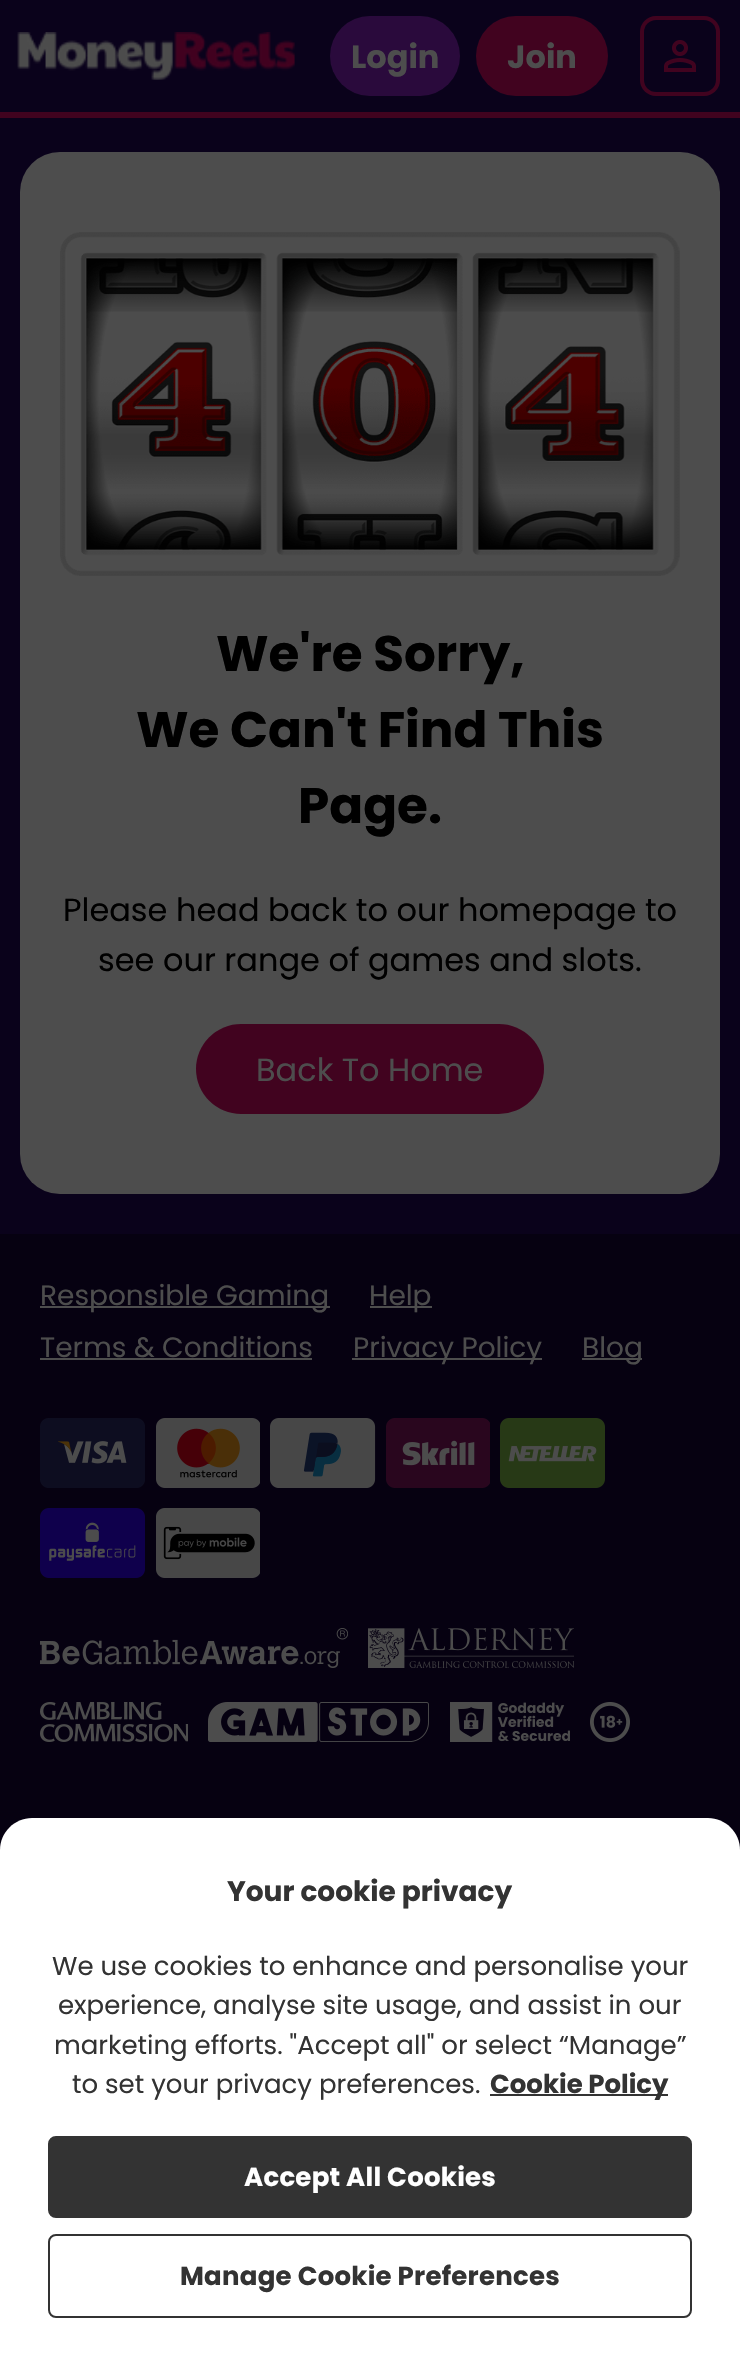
void draw(SkCanvas* c) {
SkPaint p;
p.setAntiAlias(true);
auto F=[&](const char* family, int weight, float size, bool italic = false){SkFontStyle style(weight, SkFontStyle::kNormal_Width,italic ? SkFontStyle::kItalic_Slant : SkFontStyle::kUpright_Slant);SkFont result(fontMgr->matchFamilyStyle(family, style), size);result.setSubpixel(true);return result;};
auto T=[&](const char* s, float x, float y, const SkFont& font){c->drawString(s, x, y, font, p);};
auto L=[&](const char* s, float x, float y, const SkFont& font, const SkPaint& ink, float letter, float word){std::vector<SkGlyphID> glyphs(font.countText(s, strlen(s), SkTextEncoding::kUTF8));std::vector<float> xs(glyphs.size());font.textToGlyphs(s, strlen(s), SkTextEncoding::kUTF8, glyphs);font.getXPos(glyphs, xs, x);float extra = 0;for (size_t i = 0; i < glyphs.size(); i++) {xs[i] += extra;extra += letter + word * (glyphs[i] == font.unicharToGlyph(' '));}c->drawTextBlob(SkTextBlob::MakeFromPosHGlyphs(glyphs, xs, y, font), 0, 0, ink);};
auto R=[&](float x, float y, float w, float h){c->drawRect(SkRect::MakeXYWH(x, y, w, h), p);};
auto Q=[&](float x, float y, float w, float h, float radius){c->drawRoundRect(SkRect::MakeXYWH(x, y, w, h), radius, radius, p);};
auto I=[&](const char* path, float x, float y, float w, float h){auto image = SkImages::DeferredFromEncodedData(SkData::MakeFromFileName(path));c->drawImageRect(image, SkRect::MakeXYWH(x, y, w, h), SkSamplingOptions());};
auto P=[&](const char* data, bool evenOdd = false){SkPath result = *SkParsePath::FromSVGString(data);if (evenOdd) result.setFillType(SkPathFillType::kEvenOdd);return result;};
c->clear(0xff0a021b);
p.setColor(0xff41031f);
R(0,112,740,6);
I("1.png",17,32,278,48);
p.setColor(0xff2a0a3c);
Q(330,16,130,80,40);
auto f1 = F("Poppins",700,32);
p.setColor(0xff4d4d4d);
T("Login",351,68,f1);
p.setColor(0xff41031f);
Q(476,16,132,80,40);
p.setColor(0xff4d4d4d);
T("Join",507,68,f1);
p.setColor(0xff41031f);
Q(640,16,80,80,16);
p.setColor(0xff0a021b);
Q(644,20,72,72,12);
I("2.png",664,40,32,32);
p.setColor(0xff4d4d4d);
Q(20,152,700,1042,40);
I("3.png",60,232,620,344);
auto f2 = F("Poppins",700,50);
p.setColor(0xff000000);
T("We're Sorry,",216,671,f2);
T("We Can't Find This",136,747,f2);
T("Page.",298,823,f2);
auto f3 = F("Poppins",400,32);
T("Please head back to our homepage to",63,921,f3);
T("see our range of games and slots.",98,971,f3);
p.setColor(0xff41031f);
Q(196,1024,348,90,45);
p.setColor(0xff4d4d4d);
T("Back To Home",256,1081,f3);
p.setColor(0xff060111);
R(0,1234,740,616);
p.setColor(0xff4d4d4d);
R(40,1306,290,2);
auto f4 = F("Poppins",400,28);
T("Responsible Gaming",40,1305,f4);
R(370,1306,62,2);
T("Help",369,1305,f4);
T("Terms & Conditions",40,1357,f4);
R(40,1358,272,2);
R(352,1358,190,2);
T("Privacy Policy",353,1357,f4);
R(582,1358,60,2);
T("Blog",582,1357,f4);
I("4.png",40,1418,105,70);
I("5.png",156,1418,104,70);
I("6.png",270,1418,106,70);
I("7.png",386,1418,104,70);
I("8.png",500,1418,105,70);
I("9.png",40,1508,105,70);
I("10.png",156,1508,104,70);
I("11.png",40,1628,308,40);
I("12.png",368,1628,206,40);
I("13.png",40,1702,148,40);
I("14.png",208,1702,221,40);
I("15.png",450,1702,120,40);
I("16.png",590,1702,40,40);
p.setColor(0xffffffff);
c->drawPath(P("M32 1818h676c17.5 0 32 14.5 32 32v516h-740v-516c0-17.5 14.5-32 32-32z"),p);
auto f5 = F("Poppins",700,28);
p.setColor(0xff333333);
T("Your cookie privacy",227,1901,f5);
auto f6 = F("Poppins",400,26);
T("We use cookies to enhance and personalise your",52,1975,f6);
T("experience, analyse site usage, and assist in our",58,2014,f6);
T("marketing efforts. \"Accept all\" or select “Manage”",54,2054,f6);
T("to set your privacy preferences.",72,2093,f6);
R(490,2094,178,2);
auto f7 = F("Poppins",700,26);
T("Cookie Policy",490,2093,f7);
c->drawRoundRect(SkRect::MakeXYWH(49,2137,642,80),7,7,p);
p.setStroke(true);
p.setStrokeWidth(2);
c->drawRoundRect(SkRect::MakeXYWH(49,2137,642,80),7,7,p);
p.setStroke(false);
p.setColor(0xffffffff);
L("Accept All Cookies",244,2186,f7,p,.25,0);
p.setStroke(true);
p.setColor(0xff333333);
c->drawRoundRect(SkRect::MakeXYWH(49,2235,642,82),7,7,p);
p.setStroke(false);
L("Manage Cookie Preferences",180,2285,f7,p,.25,0);
}
